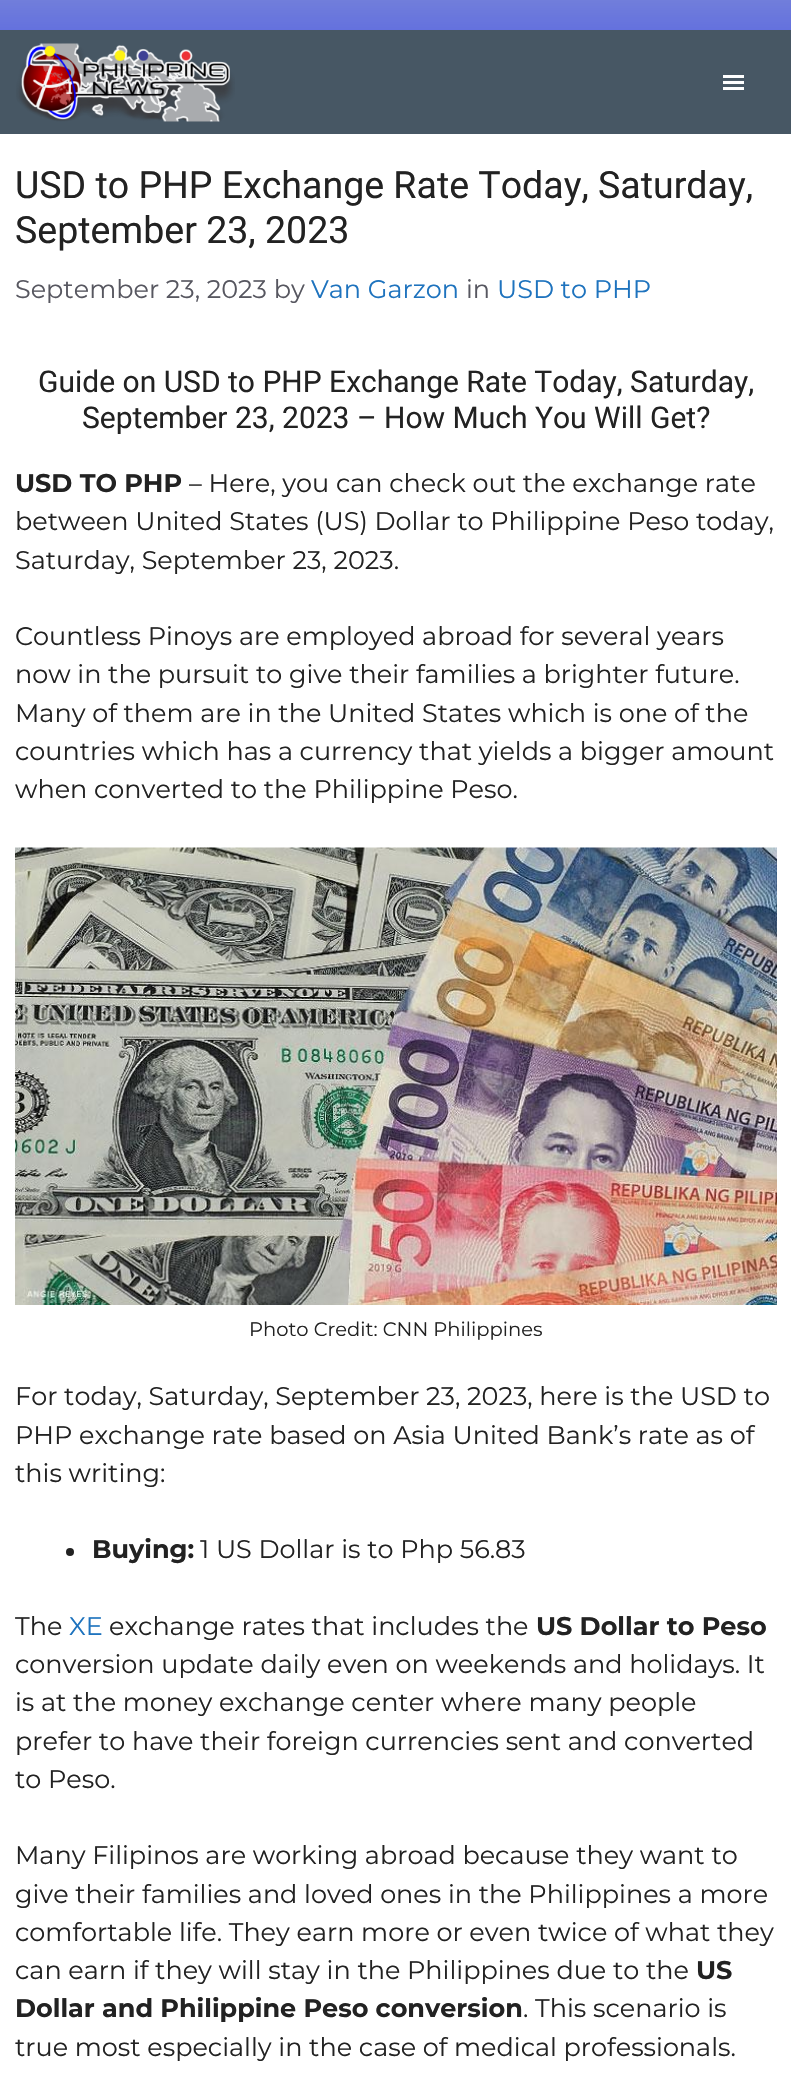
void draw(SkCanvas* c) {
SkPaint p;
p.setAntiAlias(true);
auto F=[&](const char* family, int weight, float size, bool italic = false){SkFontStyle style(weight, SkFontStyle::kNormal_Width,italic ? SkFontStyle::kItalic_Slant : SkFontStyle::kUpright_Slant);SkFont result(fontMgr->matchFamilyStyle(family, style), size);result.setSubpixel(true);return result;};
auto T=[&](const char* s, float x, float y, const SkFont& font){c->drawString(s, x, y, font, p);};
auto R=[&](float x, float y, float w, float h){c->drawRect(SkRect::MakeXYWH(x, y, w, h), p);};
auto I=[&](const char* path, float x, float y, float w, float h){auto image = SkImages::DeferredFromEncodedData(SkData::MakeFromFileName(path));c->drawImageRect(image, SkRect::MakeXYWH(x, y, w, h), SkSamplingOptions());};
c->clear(0xffffffff);
{
const SkColor colors[] = {0xff717edb,0xff3744e7};
const float stops[] = {0,1};
const SkPoint ends[] = {{396,0}, {396,134}};
p.setShader(SkGradientShader::MakeLinear(ends, colors, stops, 2, SkTileMode::kClamp));
p.setAlpha(255);
}
R(0,0,791,30);
p.setShader(nullptr);
p.setColor(0xff475764);
R(0,30,791,104);
I("1.png",16,43,219,79);
I("2.png",723,75,21,15);
auto f1 = F("Roboto",400,37.5);
p.setColor(0xff222222);
T("USD to PHP Exchange Rate Today, Saturday,",15,198,f1);
T("September 23, 2023",15,243,f1);
auto f2 = F("Montserrat",400,25.5);
p.setColor(0xff575760);
T("September 23, 2023 by",15,298,f2);
p.setColor(0xff1e73be);
T("Van Garzon",311,298,f2);
p.setColor(0xff575760);
T("in",466,298,f2);
p.setColor(0xff1e73be);
T("USD to PHP",497,298,f2);
auto f3 = F("Roboto",400,30);
p.setColor(0xff222222);
T("Guide on USD to PHP Exchange Rate Today, Saturday,",38,392,f3);
T("September 23, 2023 – How Much You Will Get?",82,428,f3);
auto f4 = F("Montserrat",700,25.5);
T("USD TO PHP",15,492,f4);
T("– Here, you can check out the exchange rate",189,492,f2);
T("between United States (US) Dollar to Philippine Peso today,",15,530,f2);
T("Saturday, September 23, 2023.",15,569,f2);
T("Countless Pinoys are employed abroad for several years",15,645,f2);
T("now in the pursuit to give their families a brighter future.",15,683,f2);
T("Many of them are in the United States which is one of the",15,722,f2);
T("countries which has a currency that yields a bigger amount",15,760,f2);
T("when converted to the Philippine Peso.",15,798,f2);
I("3.png",15,847,762,458);
auto f5 = F("Montserrat",400,19.5);
T("Photo Credit: CNN Philippines",249,1336,f5);
T("For today, Saturday, September 23, 2023, here is the USD to",15,1405,f2);
T("PHP exchange rate based on Asia United Bank’s rate as of",15,1444,f2);
T("this writing:",15,1482,f2);
c->drawCircle(70,1552,4,p);
T("Buying:",92,1558,f4);
T("1 US Dollar is to Php 56.83",200,1558,f2);
T("The",15,1635,f2);
p.setColor(0xff1e73be);
T("XE",69,1635,f2);
p.setColor(0xff222222);
T("exchange rates that includes the",109,1635,f2);
T("US Dollar to Peso",536,1635,f4);
T("conversion update daily even on weekends and holidays. It",15,1673,f2);
T("is at the money exchange center where many people",15,1711,f2);
T("prefer to have their foreign currencies sent and converted",15,1750,f2);
T("to Peso.",15,1788,f2);
T("Many Filipinos are working abroad because they want to",15,1864,f2);
T("give their families and loved ones in the Philippines a more",15,1903,f2);
T("comfortable life. They earn more or even twice of what they",15,1941,f2);
T("can earn if they will stay in the Philippines due to the",15,1979,f2);
T("US",696,1979,f4);
T("Dollar and Philippine Peso conversion",15,2017,f4);
T(". This scenario is",523,2017,f2);
T("true most especially in the case of medical professionals.",15,2056,f2);
}
